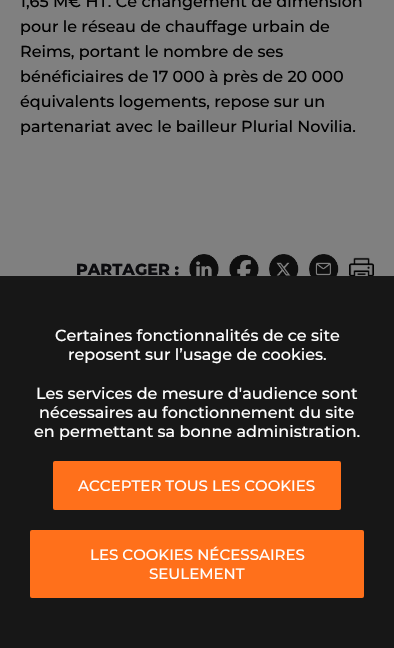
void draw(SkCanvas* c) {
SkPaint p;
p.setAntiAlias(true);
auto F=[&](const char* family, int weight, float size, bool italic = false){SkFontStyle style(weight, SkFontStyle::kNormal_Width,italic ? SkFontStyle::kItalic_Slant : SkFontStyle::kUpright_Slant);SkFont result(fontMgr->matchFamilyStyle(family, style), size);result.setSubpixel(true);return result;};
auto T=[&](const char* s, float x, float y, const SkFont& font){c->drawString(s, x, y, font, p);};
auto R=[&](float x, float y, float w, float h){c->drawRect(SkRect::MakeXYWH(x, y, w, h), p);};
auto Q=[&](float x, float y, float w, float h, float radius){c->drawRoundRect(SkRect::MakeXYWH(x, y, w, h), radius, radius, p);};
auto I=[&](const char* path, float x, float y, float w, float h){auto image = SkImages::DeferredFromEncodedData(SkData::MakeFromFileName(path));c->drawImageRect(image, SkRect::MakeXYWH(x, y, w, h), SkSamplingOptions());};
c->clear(0xff808080);
auto f1 = F("Montserrat",500,16);
p.setColor(0xff000000);
T("1,65 M€ HT. Ce changement de dimension",20,7,f1);
T("pour le réseau de chauffage urbain de",20,32,f1);
T("Reims, portant le nombre de ses",20,57,f1);
T("bénéficiaires de 17 000 à près de 20 000",20,82,f1);
T("équivalents logements, repose sur un",20,107,f1);
T("partenariat avec le bailleur Plurial Novilia.",20,132,f1);
auto f2 = F("Montserrat",800,16);
p.setColor(0xff0c0c0f);
T("PARTAGER :",76,275,f2);
I("1.png",189,254,30,22);
I("2.png",229,254,30,22);
I("3.png",269,254,30,22);
I("4.png",309,254,30,22);
I("5.png",349,257,25,19);
p.setColor(0xff171717);
R(0,276,394,372);
p.setColor(0xffffffff);
T("Certaines fonctionnalités de ce site",55,341,f1);
T("reposent sur l’usage de cookies.",68,360,f1);
T("Les services de mesure d'audience sont",36,399,f1);
T("nécessaires au fonctionnement du site",39,418,f1);
T("en permettant sa bonne administration.",34,437,f1);
p.setColor(0xffff701b);
Q(53,461,288,49,2);
auto f3 = F("Montserrat",500,15);
p.setColor(0xffffffff);
T("ACCEPTER TOUS LES COOKIES",78,491,f3);
p.setColor(0xffff701b);
Q(30,530,334,68,2);
p.setColor(0xffffffff);
T("LES COOKIES NÉCESSAIRES",90,560,f3);
T("SEULEMENT",149,579,f3);
}
